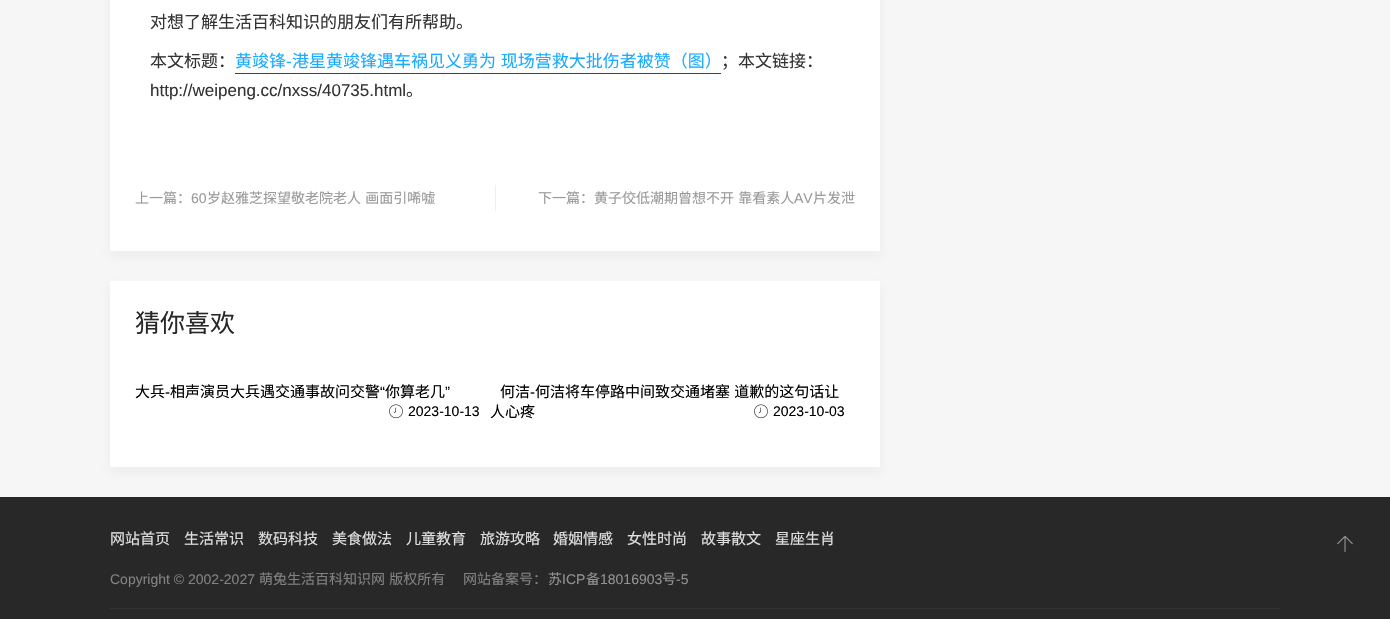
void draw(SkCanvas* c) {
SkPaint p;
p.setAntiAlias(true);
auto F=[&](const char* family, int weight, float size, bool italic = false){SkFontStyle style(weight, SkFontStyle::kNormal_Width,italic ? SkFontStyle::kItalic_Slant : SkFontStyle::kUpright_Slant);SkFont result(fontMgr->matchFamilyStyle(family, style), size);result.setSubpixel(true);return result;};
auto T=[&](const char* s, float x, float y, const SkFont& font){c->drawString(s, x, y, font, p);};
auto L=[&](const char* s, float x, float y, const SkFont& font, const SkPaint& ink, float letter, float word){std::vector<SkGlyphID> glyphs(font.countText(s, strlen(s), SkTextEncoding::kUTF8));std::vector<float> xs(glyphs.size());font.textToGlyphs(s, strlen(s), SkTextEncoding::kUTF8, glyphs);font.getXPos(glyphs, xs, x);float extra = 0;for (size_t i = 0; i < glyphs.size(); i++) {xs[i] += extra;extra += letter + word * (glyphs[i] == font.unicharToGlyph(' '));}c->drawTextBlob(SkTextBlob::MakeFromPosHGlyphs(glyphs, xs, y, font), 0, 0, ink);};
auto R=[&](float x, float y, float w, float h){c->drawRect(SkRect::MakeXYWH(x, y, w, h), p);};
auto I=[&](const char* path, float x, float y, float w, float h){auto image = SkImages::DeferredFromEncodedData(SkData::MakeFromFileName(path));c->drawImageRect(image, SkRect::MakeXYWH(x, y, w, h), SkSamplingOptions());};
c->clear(0xfff6f6f6);
p.setColor(0x1a929292);
p.setMaskFilter(SkMaskFilter::MakeBlur(kNormal_SkBlurStyle, 5));
c->drawRect(SkRect::MakeXYWH(110,-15,770,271),p);
p.setMaskFilter(nullptr);
p.setColor(0xffffffff);
R(110,0,770,251);
auto f1 = F("Noto Sans CJK SC",400,17);
p.setColor(0xff333333);
T("对想了解生活百科知识的朋友们有所帮助。",150,28,f1);
T("本文标题：",150,67,f1);
p.setColor(0xff19abff);
T("黄竣锋",235,67,f1);
auto f2 = F("Liberation Sans",400,17);
T("-",286,67,f2);
p.setColor(0xff3d464d);
R(235,73,486,1);
p.setColor(0xff19abff);
L("港星黄竣锋遇车祸见义勇为 现场营救大批伤者被赞（图）",292,67,f1,p,0,1);
p.setColor(0xff333333);
T("；本文链接：",721,67,f1);
T("http://weipeng.cc/nxss/40735.html",150,96,f2);
T("。",406,96,f1);
auto f3 = F("Noto Sans CJK SC",400,14);
p.setColor(0xff999999);
T("上一篇：",135,203,f3);
auto f4 = F("Liberation Sans",400,14);
T("60",191,203,f4);
L("岁赵雅芝探望敬老院老人 画面引唏嘘",207,203,f3,p,0,1);
p.setColor(0xffefefef);
R(495,185,1,26);
p.setColor(0xff999999);
T("下一篇：",538,203,f3);
L("黄子佼低潮期曾想不开 靠看素人",594,203,f3,p,0,1);
T("AV",794,203,f4);
T("片发泄",813,203,f3);
p.setColor(0x1a929292);
p.setMaskFilter(SkMaskFilter::MakeBlur(kNormal_SkBlurStyle, 5));
c->drawRect(SkRect::MakeXYWH(110,286,770,186),p);
p.setMaskFilter(nullptr);
p.setColor(0xffffffff);
R(110,281,770,186);
auto f5 = F("Noto Sans CJK SC",400,25);
p.setColor(0xff282828);
T("猜你喜欢",135,332,f5);
auto f6 = F("Noto Sans CJK SC",400,15);
p.setColor(0xff000000);
T("大兵",135,397,f6);
T("相声演员大兵遇交通事故问交警",170,397,f6);
auto f7 = F("Liberation Sans",400,15);
T("“",380,397,f7);
T("你算老几",385,397,f6);
T("”",445,397,f7);
T("-",165,397,f7);
I("1.png",389,404,14,15);
T("2023-10-13",408,416,f4);
T("何洁",500,397,f6);
T("-",530,397,f7);
L("何洁将车停路中间致交通堵塞 道歉的这句话让",535,397,f6,p,0,1);
T("人心疼",490,417,f6);
I("1.png",754,404,14,15);
T("2023-10-03",773,416,f4);
p.setColor(0xff282828);
R(0,497,1390,122);
p.setColor(0xffe0e0e0);
T("网站首页",110,544,f6);
T("生活常识",184,544,f6);
T("数码科技",258,544,f6);
T("美食做法",332,544,f6);
T("儿童教育",406,544,f6);
T("旅游攻略",480,544,f6);
T("婚姻情感",553,544,f6);
T("女性时尚",627,544,f6);
T("故事散文",701,544,f6);
T("星座生肖",775,544,f6);
p.setColor(0xff828282);
T("Copyright © 2002-2027",110,584,f4);
L("萌兔生活百科知识网 版权所有",259,584,f3,p,0,1);
T("网站备案号：",463,584,f3);
p.setColor(0xff929292);
T("苏",548,584,f3);
T("ICP",562,584,f4);
T("备",586,584,f3);
T("18016903",600,584,f4);
T("号",662,584,f3);
T("-5",676,584,f4);
p.setColor(0xff333333);
R(110,608,1170,1);
I("2.png",1337,536,16,16);
}
